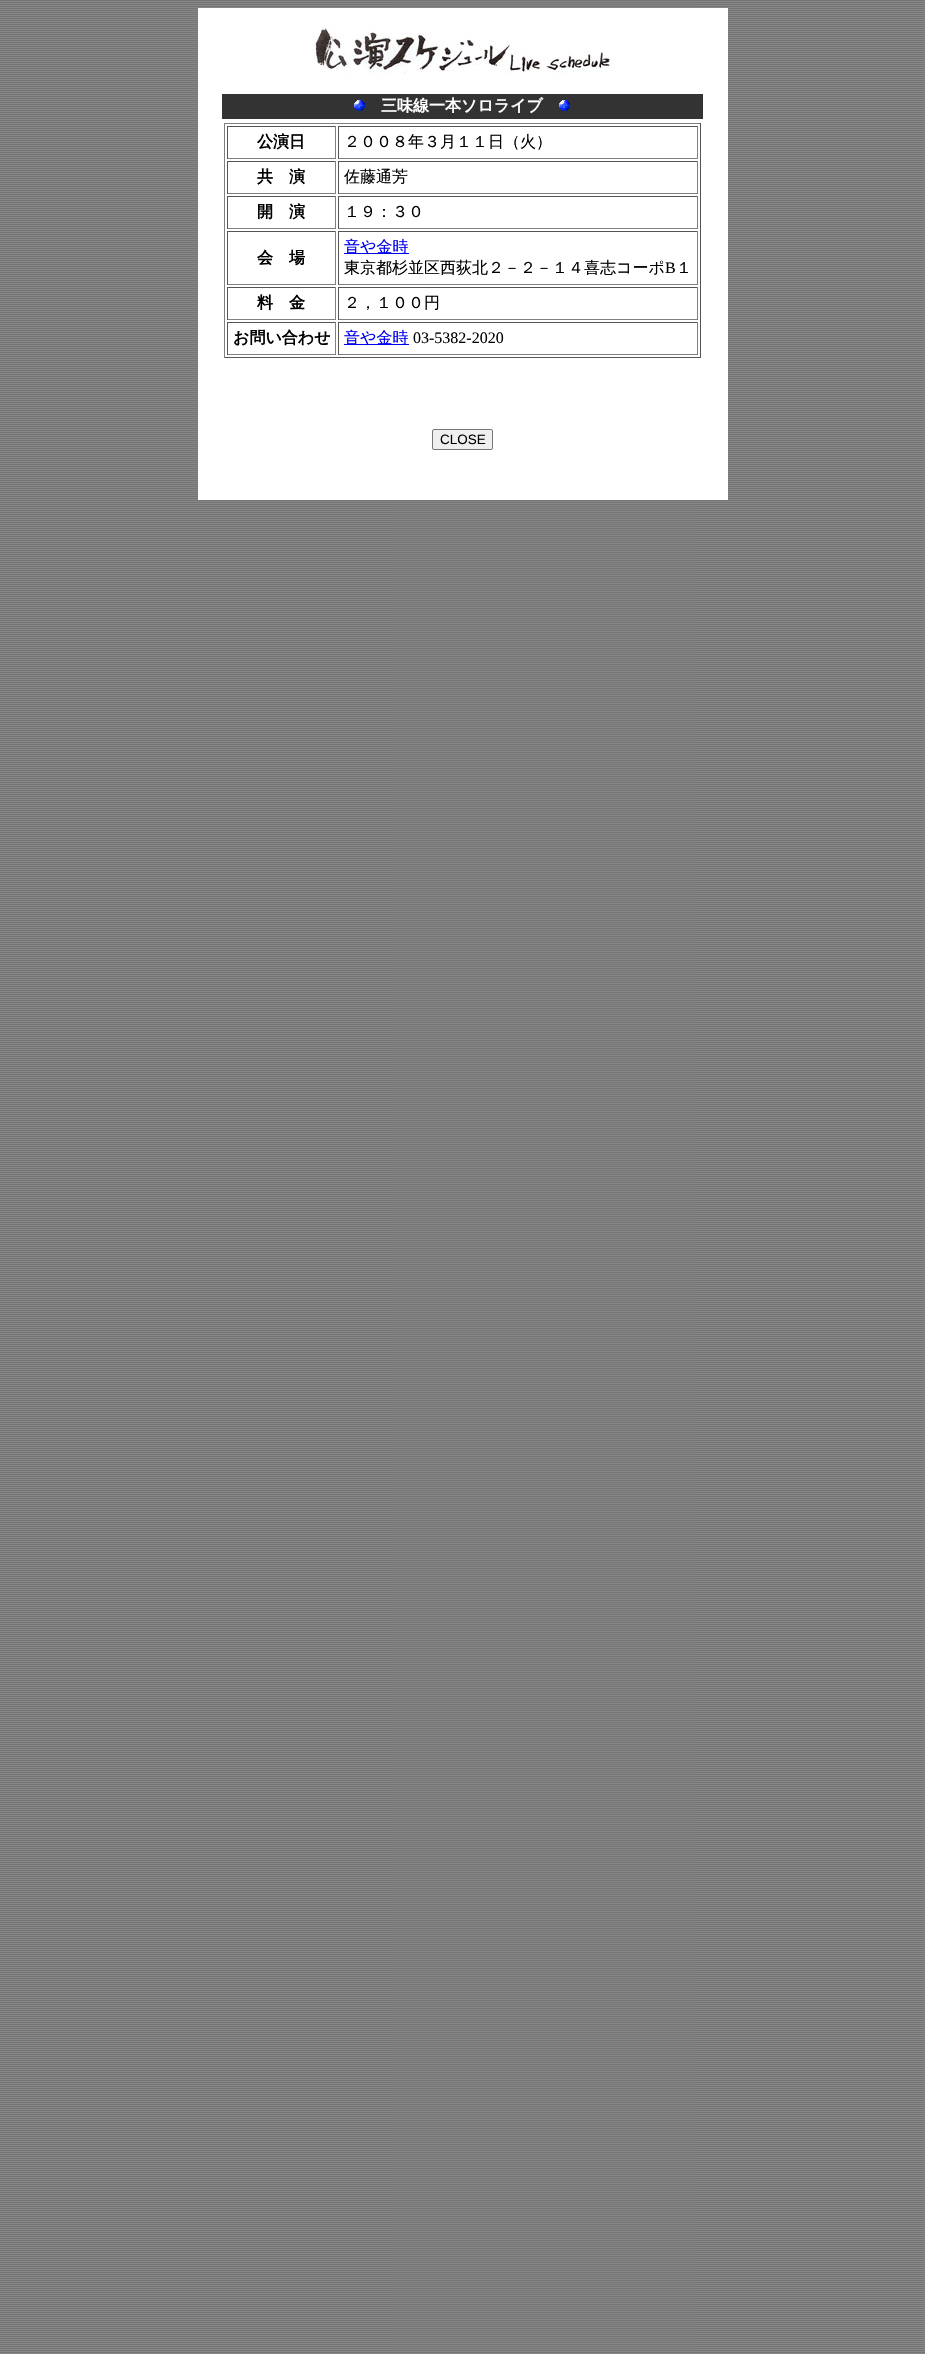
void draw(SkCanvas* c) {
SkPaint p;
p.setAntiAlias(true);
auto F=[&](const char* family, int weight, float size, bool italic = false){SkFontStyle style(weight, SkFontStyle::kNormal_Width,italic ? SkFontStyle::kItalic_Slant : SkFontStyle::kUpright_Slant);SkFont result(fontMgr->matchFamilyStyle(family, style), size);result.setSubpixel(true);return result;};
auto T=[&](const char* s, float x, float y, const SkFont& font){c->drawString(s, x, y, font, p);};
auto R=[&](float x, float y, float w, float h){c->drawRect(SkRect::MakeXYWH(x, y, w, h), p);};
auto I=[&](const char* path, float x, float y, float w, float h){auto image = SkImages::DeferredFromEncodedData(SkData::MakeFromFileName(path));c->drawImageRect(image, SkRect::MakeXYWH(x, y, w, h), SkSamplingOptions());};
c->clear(0xffffffff);
I("1.png",0,0,925,2354);
p.setColor(0xffffffff);
R(198,8,530,84);
I("2.png",312,25,301,49);
R(198,92,530,337);
p.setColor(0xff333333);
R(222,94,481,25);
I("3.png",354,100,11,11);
auto f1 = F("WenQuanYi Zen Hei",700,16);
p.setColor(0xffffffff);
T("三味線一本ソロライブ",381,111,f1);
I("3.png",559,100,11,11);
p.setColor(0xff808080);
R(224,123,477,1);
p.setColor(0xff555555);
R(700,123,1,235);
R(224,357,477,1);
p.setColor(0xff808080);
R(224,123,1,235);
p.setColor(0xff555555);
R(227,126,109,1);
p.setColor(0xff808080);
R(335,126,1,33);
R(227,158,109,1);
p.setColor(0xff555555);
R(227,126,1,33);
p.setColor(0xff000000);
T("公演日",257,147,f1);
p.setColor(0xff555555);
R(338,126,360,1);
p.setColor(0xff808080);
R(697,126,1,33);
R(338,158,360,1);
p.setColor(0xff555555);
R(338,126,1,33);
auto f2 = F("WenQuanYi Zen Hei",500,16);
p.setColor(0xff000000);
T("２００８年３月１１日（火）",344,147,f2);
p.setColor(0xff555555);
R(227,161,109,1);
p.setColor(0xff808080);
R(335,161,1,33);
R(227,193,109,1);
p.setColor(0xff555555);
R(227,161,1,33);
p.setColor(0xff000000);
T("共　演",257,182,f1);
p.setColor(0xff555555);
R(338,161,360,1);
p.setColor(0xff808080);
R(697,161,1,33);
R(338,193,360,1);
p.setColor(0xff555555);
R(338,161,1,33);
p.setColor(0xff000000);
T("佐藤通芳",344,182,f2);
p.setColor(0xff555555);
R(227,196,109,1);
p.setColor(0xff808080);
R(335,196,1,33);
R(227,228,109,1);
p.setColor(0xff555555);
R(227,196,1,33);
p.setColor(0xff000000);
T("開　演",257,217,f1);
p.setColor(0xff555555);
R(338,196,360,1);
p.setColor(0xff808080);
R(697,196,1,33);
R(338,228,360,1);
p.setColor(0xff555555);
R(338,196,1,33);
p.setColor(0xff000000);
T("１９：３０",344,217,f2);
p.setColor(0xff555555);
R(227,231,109,1);
p.setColor(0xff808080);
R(335,231,1,54);
R(227,284,109,1);
p.setColor(0xff555555);
R(227,231,1,54);
p.setColor(0xff000000);
T("会　場",257,263,f1);
p.setColor(0xff555555);
R(338,231,360,1);
p.setColor(0xff808080);
R(697,231,1,54);
R(338,284,360,1);
p.setColor(0xff555555);
R(338,231,1,54);
p.setColor(0xff0000ee);
R(344,253,65,1);
T("音や金時",344,252,f2);
p.setColor(0xff000000);
T("東京都杉並区西荻北２－２－１４喜志コーポ",344,273,f2);
auto f3 = F("Liberation Serif",400,16);
T("B",665,273,f3);
T("１",676,273,f2);
p.setColor(0xff555555);
R(227,287,109,1);
p.setColor(0xff808080);
R(335,287,1,33);
R(227,319,109,1);
p.setColor(0xff555555);
R(227,287,1,33);
p.setColor(0xff000000);
T("料　金",257,308,f1);
p.setColor(0xff555555);
R(338,287,360,1);
p.setColor(0xff808080);
R(697,287,1,33);
R(338,319,360,1);
p.setColor(0xff555555);
R(338,287,1,33);
p.setColor(0xff000000);
T("２，１００円",344,308,f2);
p.setColor(0xff555555);
R(227,322,109,1);
p.setColor(0xff808080);
R(335,322,1,33);
R(227,354,109,1);
p.setColor(0xff555555);
R(227,322,1,33);
p.setColor(0xff000000);
T("お問い合わせ",233,343,f1);
p.setColor(0xff555555);
R(338,322,360,1);
p.setColor(0xff808080);
R(697,322,1,33);
R(338,354,360,1);
p.setColor(0xff555555);
R(338,322,1,33);
p.setColor(0xff0000ee);
R(344,344,65,1);
T("音や金時",344,343,f2);
p.setColor(0xff000000);
T("03-5382-2020",413,343,f3);
p.setColor(0xffffffff);
R(198,429,530,71);
p.setColor(0xffefefef);
c->drawRoundRect(SkRect::MakeXYWH(432.5,429.5,60,20),1.5,1.5,p);
p.setStroke(true);
p.setStrokeWidth(1);
p.setColor(0xff767676);
c->drawRoundRect(SkRect::MakeXYWH(432.5,429.5,60,20),1.5,1.5,p);
auto f4 = F("Liberation Sans",400,13.5);
p.setStroke(false);
p.setColor(0xff000000);
T("CLOSE",440,444,f4);
}
